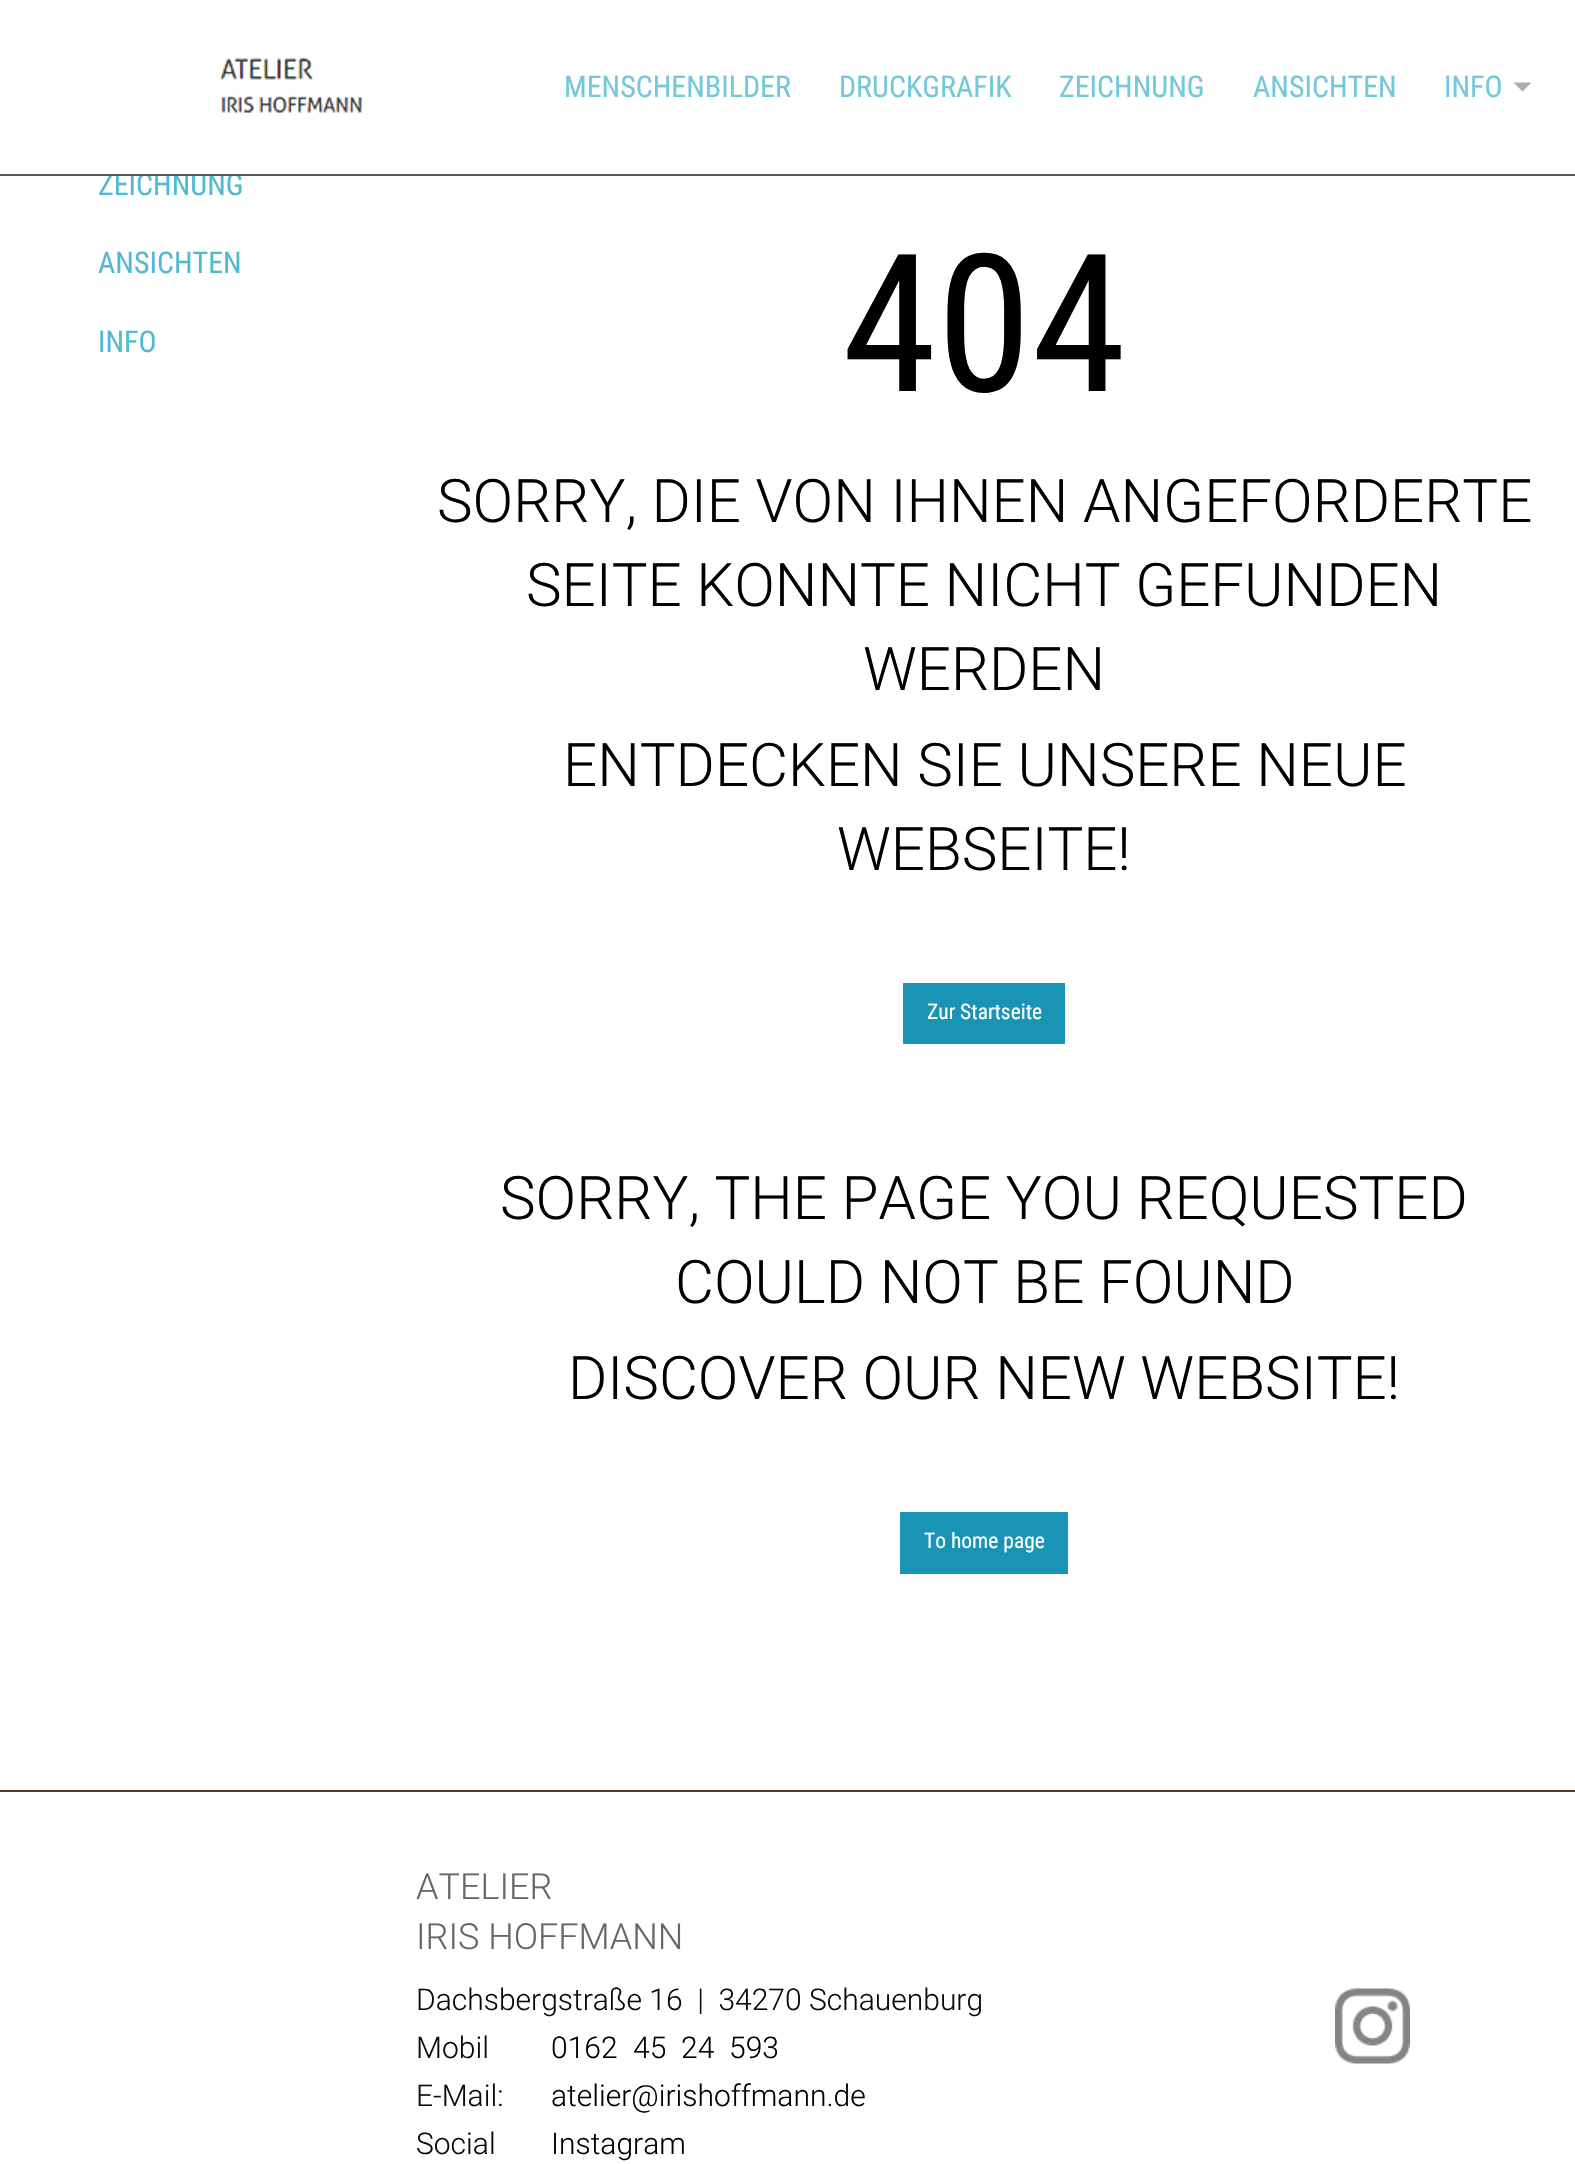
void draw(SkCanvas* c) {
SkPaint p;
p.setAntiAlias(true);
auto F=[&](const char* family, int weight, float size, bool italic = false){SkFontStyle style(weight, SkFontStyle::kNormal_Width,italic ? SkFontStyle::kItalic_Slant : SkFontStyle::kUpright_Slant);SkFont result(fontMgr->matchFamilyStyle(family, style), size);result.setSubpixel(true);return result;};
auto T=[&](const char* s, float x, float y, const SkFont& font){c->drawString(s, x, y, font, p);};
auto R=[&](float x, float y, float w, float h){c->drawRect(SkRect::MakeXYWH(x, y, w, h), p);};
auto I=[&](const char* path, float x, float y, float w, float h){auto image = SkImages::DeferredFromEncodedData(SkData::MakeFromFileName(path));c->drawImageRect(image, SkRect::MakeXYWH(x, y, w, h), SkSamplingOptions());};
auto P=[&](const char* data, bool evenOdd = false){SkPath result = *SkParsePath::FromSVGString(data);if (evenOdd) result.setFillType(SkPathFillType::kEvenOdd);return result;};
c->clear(0xffffffff);
auto f1 = F("Roboto Condensed",400,30);
p.setColor(0xff51bad2);
T("ZEICHNUNG",98,195,f1);
p.setColor(0xccffffff);
R(98,173,142,3);
p.setColor(0xcc333333);
R(0,174,1575,2);
p.setColor(0xccffffff);
R(99,173,138,1);
I("1.png",220,58,142,55);
p.setColor(0xff74c8db);
T("MENSCHENBILDER",564,97,f1);
T("DRUCKGRAFIK",839,97,f1);
T("ZEICHNUNG",1059,97,f1);
T("ANSICHTEN",1253,97,f1);
T("INFO",1444,97,f1);
p.setColor(0xffadadad);
c->drawPath(P("M1513.5 82.5h18l-9 9z"),p);
p.setColor(0xff51bad2);
T("ANSICHTEN",98,273,f1);
T("INFO",98,352,f1);
auto f2 = F("Roboto Condensed",400,192);
p.setColor(0xff000000);
T("404",842,391,f2);
auto f3 = F("Roboto",300,60);
T("SORRY, DIE VON IHNEN ANGEFORDERTE",437,522,f3);
T("SEITE KONNTE NICHT GEFUNDEN",526,606,f3);
T("WERDEN",863,690,f3);
T("ENTDECKEN SIE UNSERE NEUE",563,786,f3);
T("WEBSEITE!",837,870,f3);
p.setColor(0xff1994b5);
R(903,983,162,61);
auto f4 = F("Roboto Condensed",400,21.5);
p.setColor(0xffffffff);
T("Zur Startseite",927,1019,f4);
p.setColor(0xff000000);
T("SORRY, THE PAGE YOU REQUESTED",500,1219,f3);
T("COULD NOT BE FOUND",675,1303,f3);
T("DISCOVER OUR NEW WEBSITE!",568,1399,f3);
p.setColor(0xff1994b5);
R(900,1512,168,62);
p.setColor(0xffffffff);
T("To home page",924,1548,f4);
p.setColor(0xff4d3821);
R(0,1790,1575,2);
auto f5 = F("Roboto",300,36);
p.setColor(0xff666666);
T("ATELIER",416,1899,f5);
T("IRIS HOFFMANN",416,1949,f5);
auto f6 = F("Roboto",300,30);
p.setColor(0xff0a0a0a);
T("Dachsbergstraße 16  |  34270 Schauenburg",416,2010,f6);
T("Mobil",416,2058,f6);
p.setColor(0xff000000);
T("0162",551,2058,f6);
T("45",633,2058,f6);
T("24",681,2058,f6);
T("593",729,2058,f6);
p.setColor(0xff0a0a0a);
T("E-Mail:",416,2106,f6);
p.setColor(0xff000000);
T("atelier@irishoffmann.de",551,2106,f6);
p.setColor(0xff0a0a0a);
T("Social",416,2154,f6);
p.setColor(0xff000000);
T("Instagram",551,2154,f6);
I("2.png",1335,1988,75,76);
}
